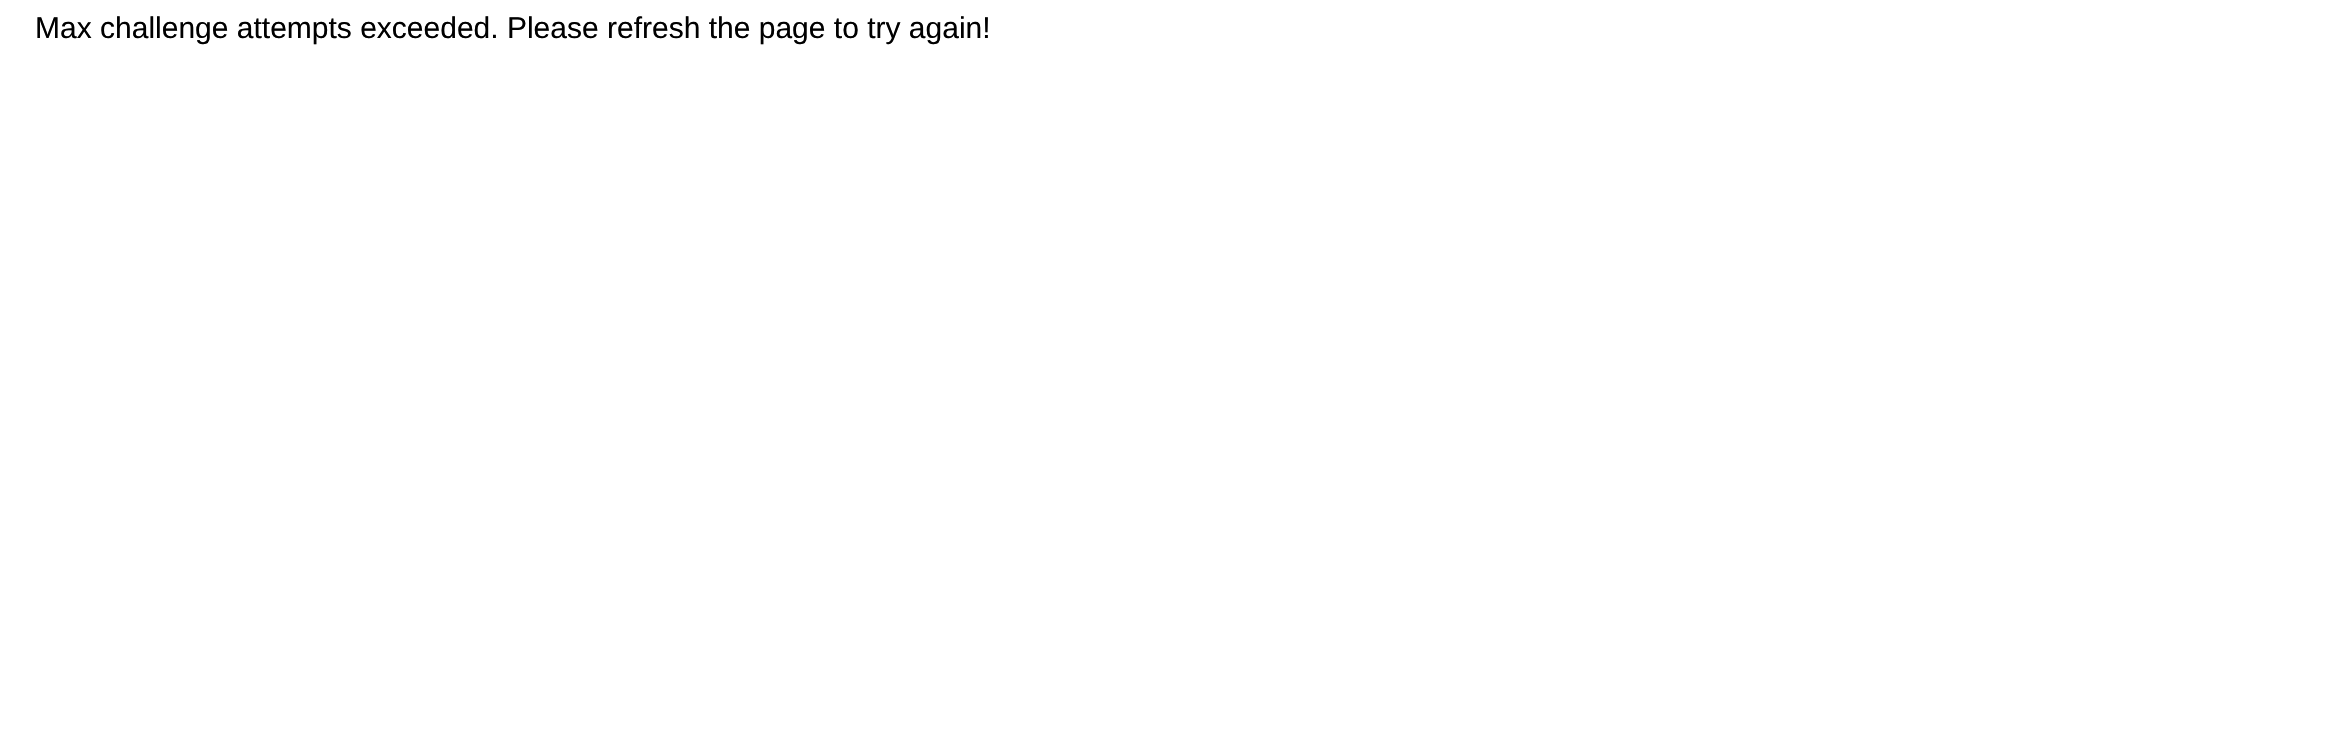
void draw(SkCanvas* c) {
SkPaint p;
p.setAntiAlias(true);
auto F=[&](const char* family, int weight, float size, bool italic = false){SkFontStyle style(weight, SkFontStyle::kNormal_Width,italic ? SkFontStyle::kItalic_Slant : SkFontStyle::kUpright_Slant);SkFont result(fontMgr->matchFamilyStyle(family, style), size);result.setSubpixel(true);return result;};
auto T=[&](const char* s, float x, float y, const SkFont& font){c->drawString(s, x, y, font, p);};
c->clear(0xffffffff);
auto f1 = F("Liberation Sans",400,30);
p.setColor(0xff000000);
T("Max challenge attempts exceeded. Please refresh the page to try again!",35,38,f1);
}
